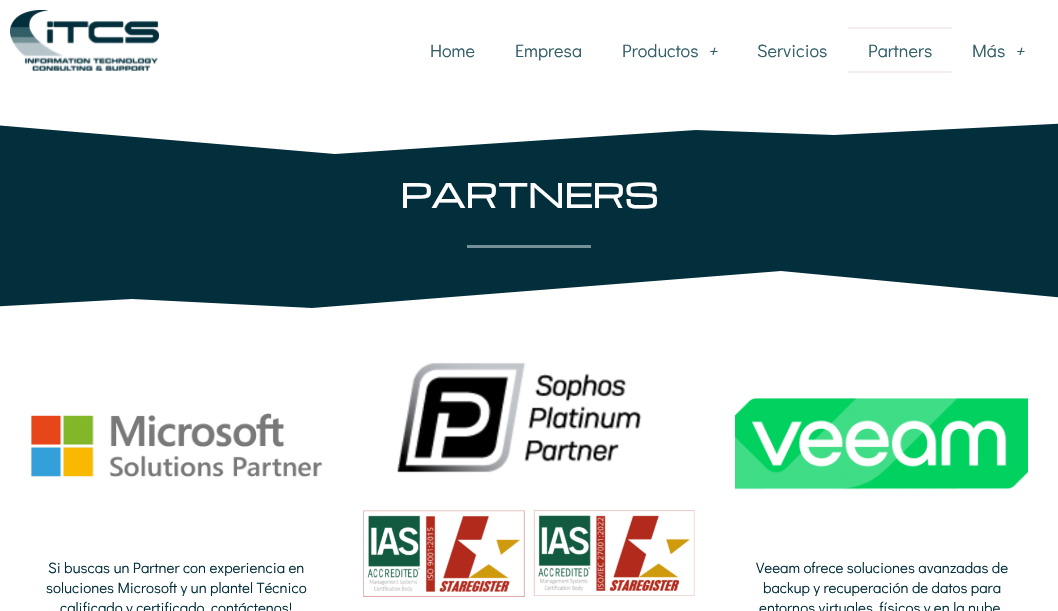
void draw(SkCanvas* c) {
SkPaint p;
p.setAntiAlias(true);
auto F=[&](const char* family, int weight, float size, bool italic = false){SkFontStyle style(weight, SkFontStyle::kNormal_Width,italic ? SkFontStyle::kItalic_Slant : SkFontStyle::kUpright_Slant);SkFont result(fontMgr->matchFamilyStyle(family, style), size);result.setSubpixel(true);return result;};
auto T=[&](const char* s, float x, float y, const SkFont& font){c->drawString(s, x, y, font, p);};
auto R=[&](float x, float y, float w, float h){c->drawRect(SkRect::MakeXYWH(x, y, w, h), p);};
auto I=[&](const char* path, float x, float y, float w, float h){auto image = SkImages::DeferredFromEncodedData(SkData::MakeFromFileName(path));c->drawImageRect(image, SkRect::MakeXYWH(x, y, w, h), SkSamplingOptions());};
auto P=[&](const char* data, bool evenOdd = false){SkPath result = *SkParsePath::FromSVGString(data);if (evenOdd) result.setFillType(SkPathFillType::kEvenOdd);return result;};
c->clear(0xffffffff);
I("1.png",10,10,149,61);
I("2.png",363,510,162,87);
I("3.png",533,510,162,86);
auto f1 = F("Didact Gothic",400,18);
p.setColor(0xff325e67);
T("Home",430,57,f1);
T("Empresa",515,57,f1);
T("Productos",622,57,f1);
auto f2 = F("Didact Gothic",400,18,true);
T("+",708,57,f2);
T("Servicios",757,57,f1);
p.setColor(0xfff6eeec);
R(848,27,104,2);
p.setColor(0xff325e67);
T("Partners",868,57,f1);
p.setColor(0xfff6eeec);
R(848,71,104,2);
p.setColor(0xff325e67);
T("Más",972,57,f1);
T("+",1015,57,f2);
p.setColor(0xff032f3c);
R(0,123,1058,185);
p.setColor(0xffffffff);
c->drawPath(P("M834 135l-138-5l-361 24l-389-33v-1h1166v1"),p);
auto f3 = F("Michroma",700,32);
T("PARTNERS",400,208,f3);
p.setColor(0xff749197);
R(467,245,124,3);
p.setColor(0xffffffff);
c->drawPath(P("M132 299l180 9l469-37l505 48v2h-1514v-2"),p);
I("4.png",397,362,245,111);
I("5.png",31,413,292,64);
auto f4 = F("Didact Gothic",400,15);
p.setColor(0xff032f3c);
T("Si buscas un Partner con experiencia en",48,573,f4);
T("soluciones Microsoft y un plantel Técnico",46,593,f4);
T("calificado y certificado, contáctenos!",60,613,f4);
I("6.png",735,398,293,92);
T("Veeam ofrece soluciones avanzadas de",756,573,f4);
T("backup y recuperación de datos para",763,593,f4);
T("entornos virtuales, físicos y en la nube",759,613,f4);
}
